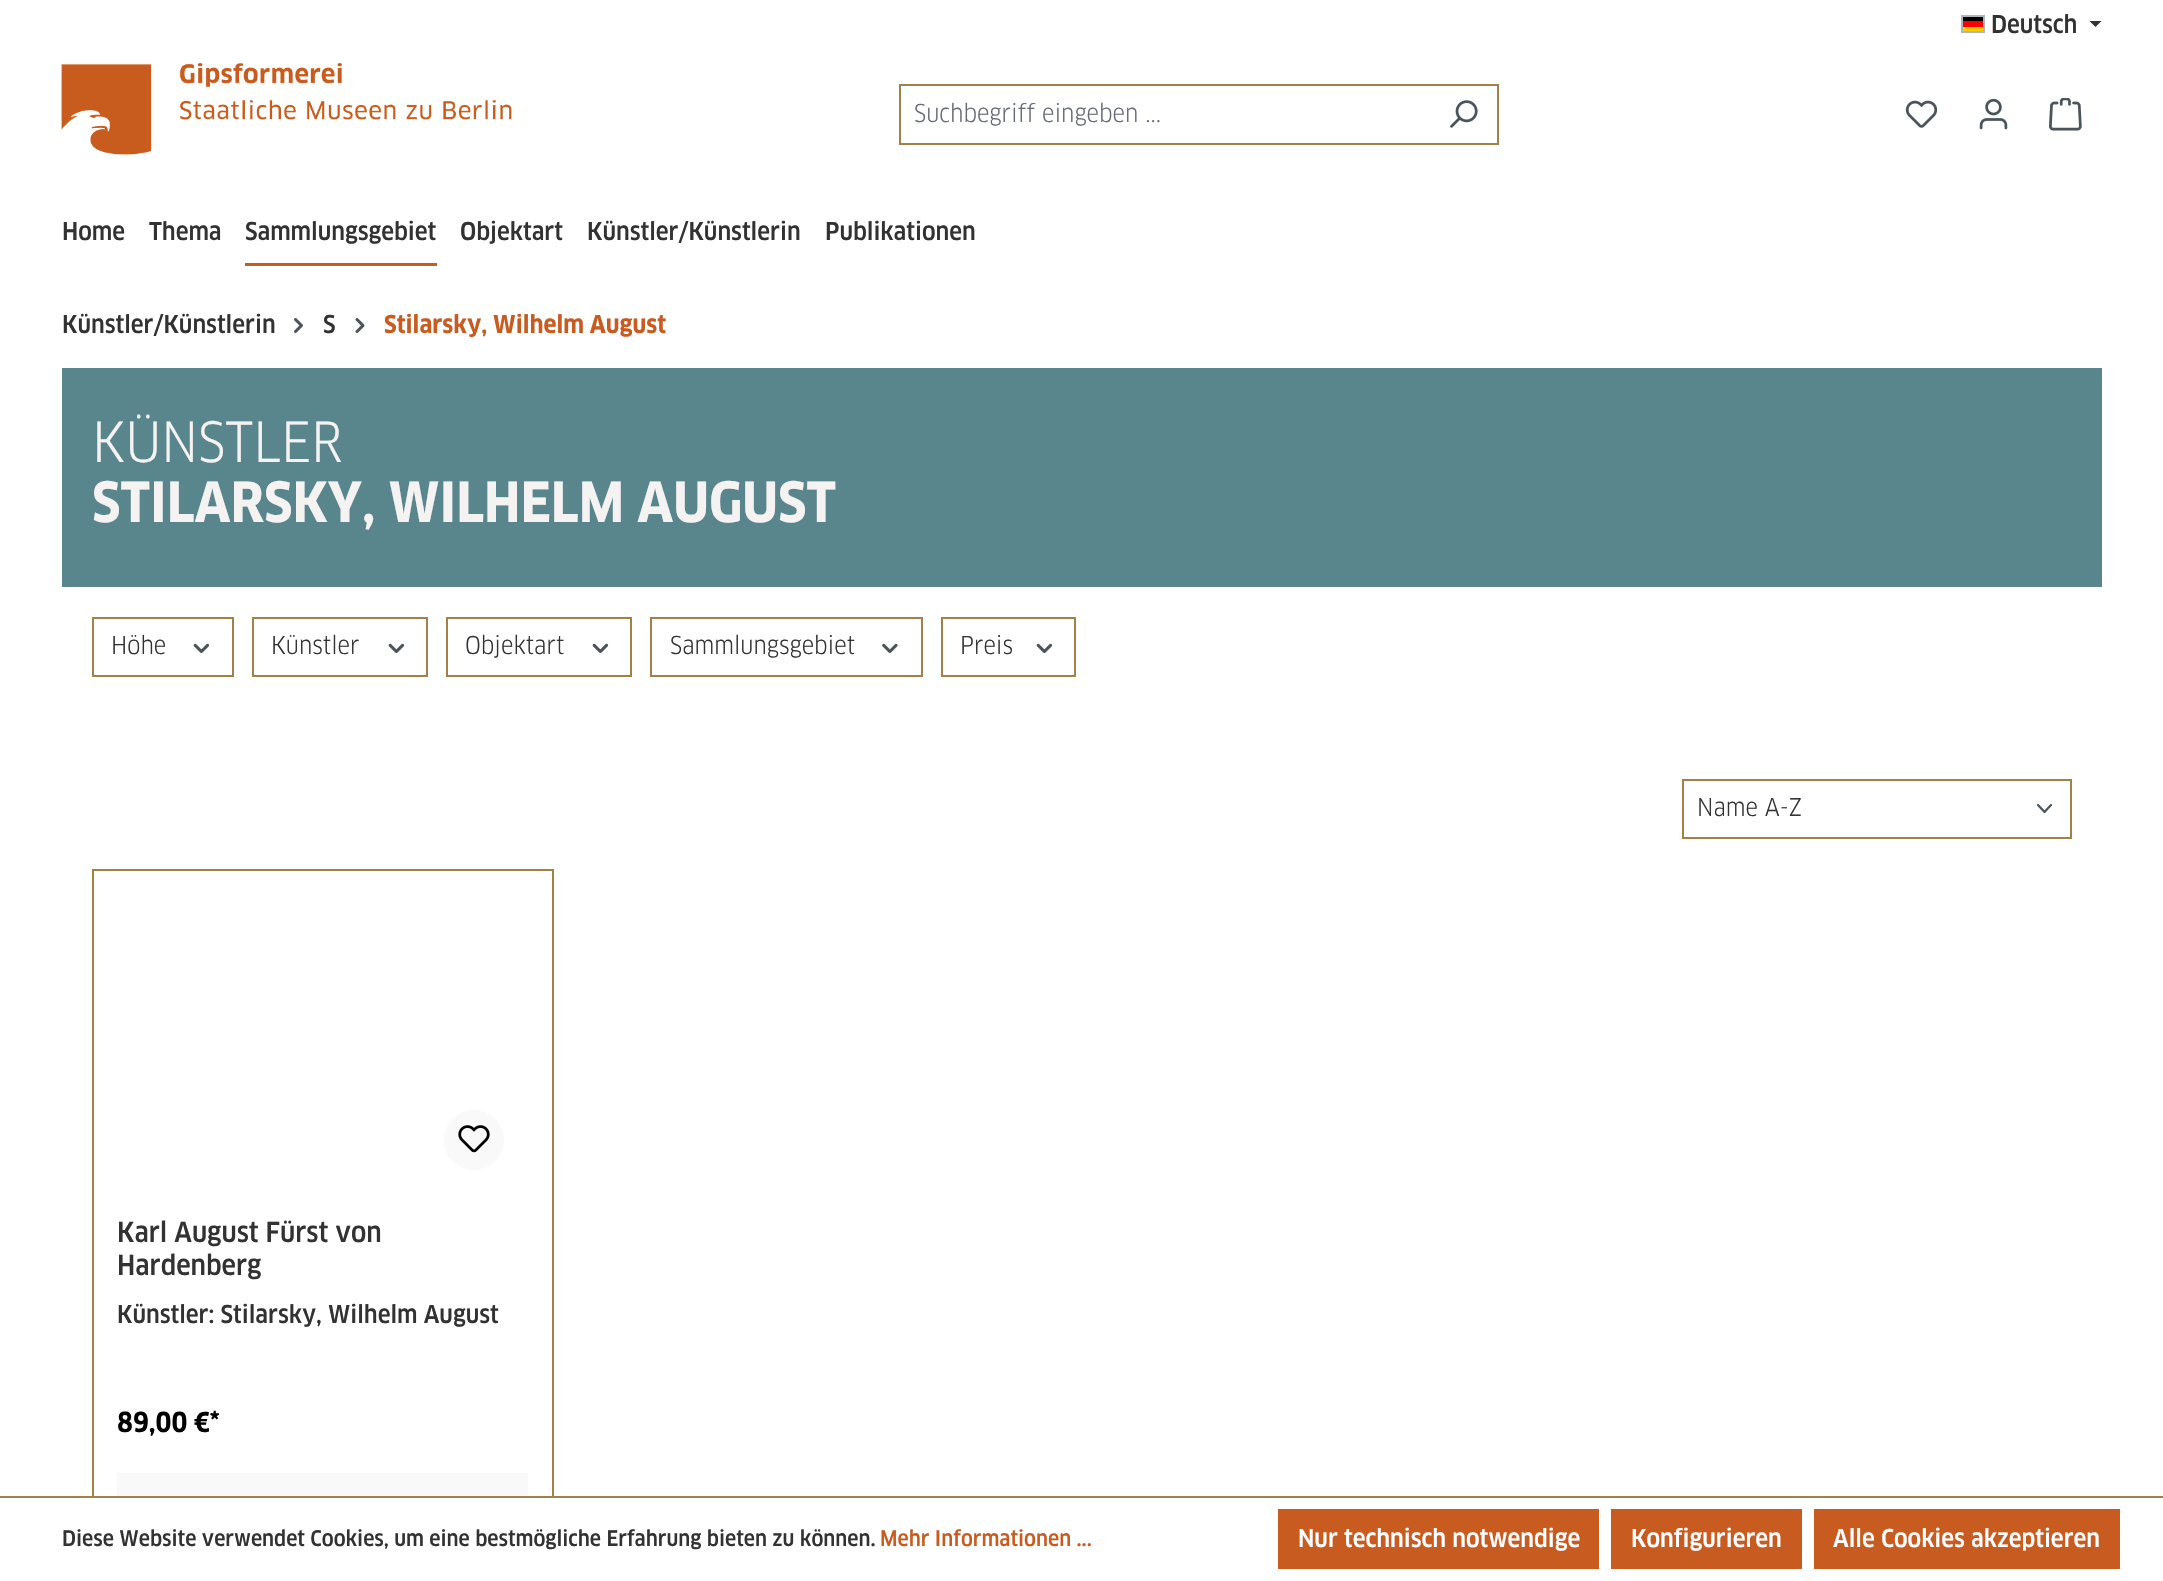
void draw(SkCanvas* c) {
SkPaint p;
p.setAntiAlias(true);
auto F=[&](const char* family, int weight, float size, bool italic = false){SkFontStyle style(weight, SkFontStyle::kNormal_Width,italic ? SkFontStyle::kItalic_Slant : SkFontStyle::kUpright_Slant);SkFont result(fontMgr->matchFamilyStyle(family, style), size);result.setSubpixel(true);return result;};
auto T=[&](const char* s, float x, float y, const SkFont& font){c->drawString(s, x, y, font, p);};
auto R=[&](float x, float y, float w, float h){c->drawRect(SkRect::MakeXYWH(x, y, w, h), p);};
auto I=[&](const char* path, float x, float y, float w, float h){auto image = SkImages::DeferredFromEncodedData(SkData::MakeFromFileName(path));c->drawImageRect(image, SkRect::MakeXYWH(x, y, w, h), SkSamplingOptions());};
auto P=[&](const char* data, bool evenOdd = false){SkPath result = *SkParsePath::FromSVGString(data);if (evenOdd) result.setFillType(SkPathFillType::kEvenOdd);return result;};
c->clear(0xffffffff);
p.setColor(0xff000000);
R(1962,17,21,4);
p.setColor(0xffff0000);
R(1962,21,21,6);
p.setColor(0xffffcc00);
R(1962,27,21,4);
p.setStroke(true);
p.setStrokeWidth(2);
p.setColor(0xffadb5bd);
c->drawRect(SkRect::MakeXYWH(1962,16,22,16),p);
auto f1 = F("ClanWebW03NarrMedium",500,24);
p.setStroke(false);
p.setColor(0xff333232);
T("Deutsch",1991,33,f1);
c->drawPath(P("M2089.5 21h12l-6 6z"),p);
I("1.png",61,63,451,92);
p.setColor(0xffa38146);
R(899,84,600,2);
R(899,143,531,2);
R(899,84,2,60);
auto f2 = F("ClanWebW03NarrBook",400,24);
p.setColor(0xff666977);
T("Suchbegriff eingeben ...",914,122,f2);
p.setColor(0xffa38146);
R(1497,84,2,60);
R(1428,143,71,2);
I("2.png",1450,100,28,28);
I("3.png",1905,100,33,28);
I("4.png",1979,98,29,32);
I("5.png",2049,98,33,33);
p.setColor(0xff333232);
T("Home",62,240,f1);
T("Thema",149,240,f1);
p.setColor(0xffc85b1f);
R(245,263,192,3);
p.setColor(0xff333232);
T("Sammlungsgebiet",245,240,f1);
T("Objektart",460,240,f1);
T("Künstler/Künstlerin",587,240,f1);
T("Publikationen",825,240,f1);
T("Künstler/Künstlerin",62,333,f1);
I("6.png",294,318,9,15);
T("S",323,333,f1);
I("7.png",355,318,10,15);
auto f3 = F("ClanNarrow",700,24);
p.setColor(0xffc85b1f);
T("Stilarsky, Wilhelm August",384,333,f3);
p.setColor(0xff59858d);
R(62,368,2040,219);
auto f4 = F("ClanWebW03NarrBook",400,54);
p.setColor(0xfff5f2f2);
T("KÜNSTLER",92,462,f4);
auto f5 = F("ClanNarrow",700,54);
T("STILARSKY, WILHELM AUGUST",92,522,f5);
p.setStroke(true);
p.setColor(0xffa38146);
c->drawRect(SkRect::MakeXYWH(93,618,140,58),p);
p.setStroke(false);
p.setColor(0xff333232);
T("Höhe",111,654,f2);
I("8.png",193,643,17,10);
p.setStroke(true);
p.setColor(0xffa38146);
c->drawRect(SkRect::MakeXYWH(253,618,174,58),p);
p.setStroke(false);
p.setColor(0xff333232);
T("Künstler",271,654,f2);
I("8.png",388,643,17,10);
p.setStroke(true);
p.setColor(0xffa38146);
c->drawRect(SkRect::MakeXYWH(447,618,184,58),p);
p.setStroke(false);
p.setColor(0xff333232);
T("Objektart",465,654,f2);
I("8.png",592,643,17,10);
p.setStroke(true);
p.setColor(0xffa38146);
c->drawRect(SkRect::MakeXYWH(651,618,271,58),p);
p.setStroke(false);
p.setColor(0xff333232);
T("Sammlungsgebiet",670,654,f2);
I("9.png",882,643,16,10);
p.setStroke(true);
p.setColor(0xffa38146);
c->drawRect(SkRect::MakeXYWH(942,618,133,58),p);
p.setStroke(false);
p.setColor(0xff333232);
T("Preis",960,654,f2);
I("8.png",1036,643,17,10);
p.setStroke(true);
p.setStrokeWidth(2.2);
p.setStrokeCap(SkPaint::kRound_Cap);
p.setStrokeJoin(SkPaint::kRound_Join);
p.setColor(0xff4a545b);
c->drawPath(P("M2038 805l6.5 7l6.5-7"),p);
p.setStrokeWidth(2);
p.setStrokeCap(SkPaint::kButt_Cap);
p.setStrokeJoin(SkPaint::kMiter_Join);
p.setColor(0xffa38146);
c->drawRect(SkRect::MakeXYWH(1683,780,388,58),p);
p.setStroke(false);
p.setColor(0xff333232);
T("Name A-Z",1697,816,f2);
p.setStroke(true);
p.setColor(0xffa38146);
c->drawRect(SkRect::MakeXYWH(93,870,460,688),p);
p.setStroke(false);
p.setColor(0xfff9f9f9);
c->drawCircle(474,1140,30,p);
I("10.png",458,1125,32,28);
auto f6 = F("ClanWebW03NarrMedium",500,27);
p.setColor(0xff333232);
T("Karl August Fürst von",117,1242,f6);
T("Hardenberg",117,1275,f6);
T("Künstler: Stilarsky, Wilhelm August",117,1323,f1);
auto f7 = F("ClanNarrow",700,27);
p.setColor(0xff000000);
T("89,00 €*",117,1432,f7);
p.setColor(0xfff9f9f9);
R(117,1473,411,23);
p.setColor(0xffffffff);
R(92,1498,462,61);
p.setColor(0xffa38146);
R(0,1496,2163,2);
auto f8 = F("ClanWebW03NarrMedium",500,21);
p.setColor(0xff333232);
T("Diese Website verwendet Cookies, um eine bestmögliche Erfahrung bieten zu können.",62,1546,f8);
p.setColor(0xffc85b1f);
T("Mehr Informationen ...",880,1546,f8);
R(1278,1509,321,60);
p.setColor(0xffffffff);
T("Nur technisch notwendige",1298,1547,f1);
p.setColor(0xffc85b1f);
R(1611,1509,191,60);
p.setColor(0xffffffff);
T("Konfigurieren",1631,1547,f1);
p.setColor(0xffc85b1f);
R(1814,1509,306,60);
p.setColor(0xffffffff);
T("Alle Cookies akzeptieren",1833,1547,f1);
}
